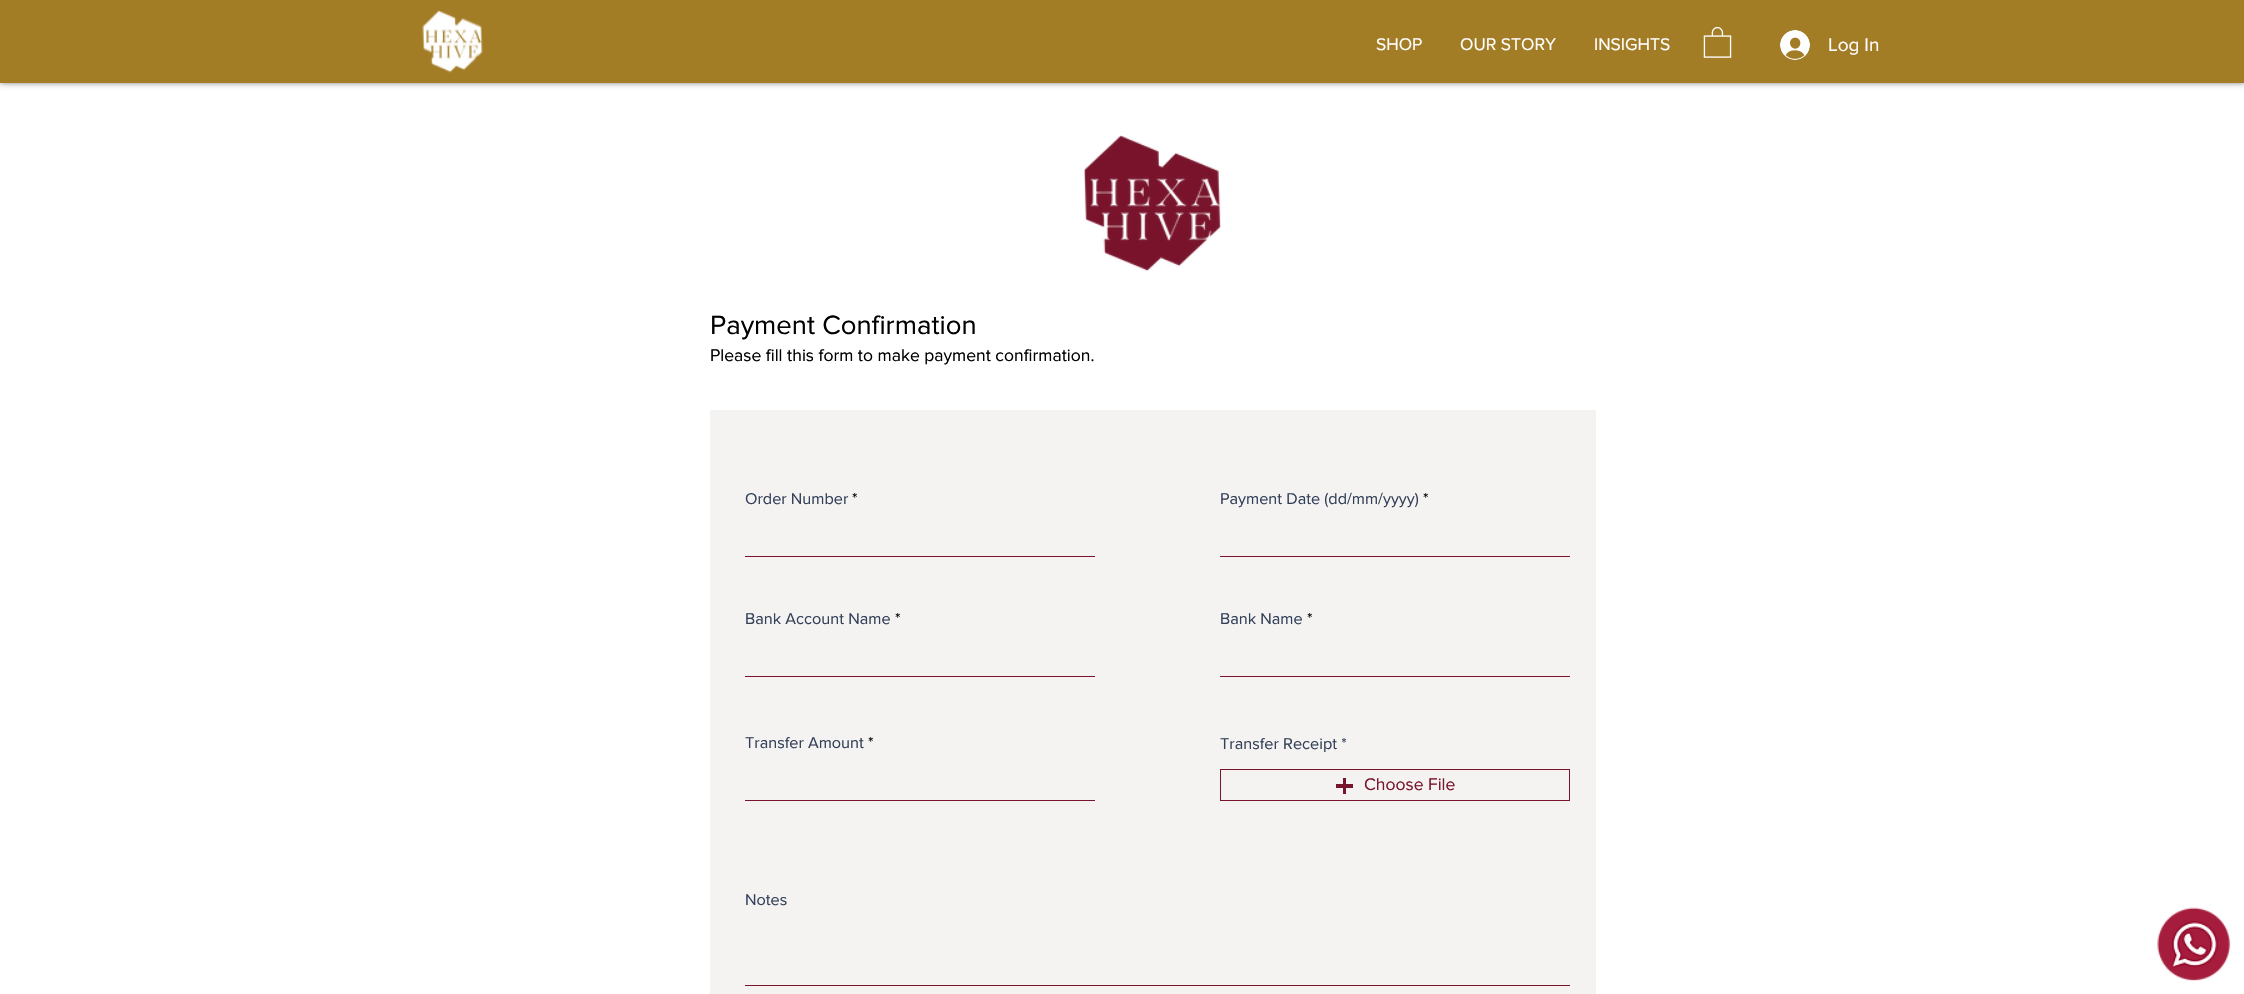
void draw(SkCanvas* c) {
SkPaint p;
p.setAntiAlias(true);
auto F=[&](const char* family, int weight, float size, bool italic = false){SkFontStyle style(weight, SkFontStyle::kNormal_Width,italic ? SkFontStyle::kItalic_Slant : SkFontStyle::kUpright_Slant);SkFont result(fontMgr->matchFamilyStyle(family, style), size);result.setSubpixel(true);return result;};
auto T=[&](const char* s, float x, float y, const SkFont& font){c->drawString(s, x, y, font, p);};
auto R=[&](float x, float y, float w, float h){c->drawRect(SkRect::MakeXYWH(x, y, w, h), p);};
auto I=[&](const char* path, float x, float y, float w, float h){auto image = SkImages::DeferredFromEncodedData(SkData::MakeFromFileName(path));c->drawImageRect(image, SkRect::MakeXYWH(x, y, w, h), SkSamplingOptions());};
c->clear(0xffffffff);
p.setColor(0x80000000);
p.setMaskFilter(SkMaskFilter::MakeBlur(kNormal_SkBlurStyle, 3));
c->drawRect(SkRect::MakeXYWH(0,0,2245,83),p);
p.setMaskFilter(nullptr);
p.setColor(0xffa37c26);
R(0,0,2244,83);
I("1.png",422,10,61,63);
auto f1 = F("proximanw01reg",400,17.5);
p.setColor(0xffffffff);
T("SHOP",1376,50,f1);
T("OUR STORY",1460,50,f1);
T("INSIGHTS",1594,50,f1);
I("2.png",1703,26,29,32);
I("3.png",1780,30,30,30);
auto f2 = F("proximanw01reg",400,19);
T("Log In",1828,51,f2);
I("4.png",1084,135,137,137);
auto f3 = F("proximanw01reg",400,27.5);
p.setColor(0xff000000);
T("Payment Confirmation",710,334,f3);
T("Please fill this form to make payment confirmation.",710,361,f1);
p.setColor(0xfff5f2f2);
R(710,410,886,584);
auto f4 = F("proximanw01reg",400,16.25);
p.setColor(0xff324158);
T("Order Number",745,504,f4);
p.setColor(0xff000000);
T("*",852,504,f4);
p.setColor(0xff78142b);
R(745,556,350,1);
p.setColor(0xff324158);
T("Payment Date (dd/mm/yyyy)",1220,504,f4);
p.setColor(0xff000000);
T("*",1423,504,f4);
p.setColor(0xff78142b);
R(1220,556,350,1);
p.setColor(0xff324158);
T("Bank Account Name",745,624,f4);
p.setColor(0xff000000);
T("*",895,624,f4);
p.setColor(0xff78142b);
R(745,676,350,1);
p.setColor(0xff324158);
T("Bank Name",1220,624,f4);
p.setColor(0xff000000);
T("*",1307,624,f4);
p.setColor(0xff78142b);
R(1220,676,350,1);
p.setColor(0xff324158);
T("Transfer Amount",745,748,f4);
p.setColor(0xff000000);
T("*",868,748,f4);
p.setColor(0xff78142b);
R(745,800,350,1);
p.setColor(0xff324158);
T("Transfer Receipt *",1220,749,f4);
p.setStroke(true);
p.setStrokeWidth(1);
p.setColor(0xff78142b);
c->drawRect(SkRect::MakeXYWH(1220.5,769.5,349,31),p);
p.setStroke(false);
R(1343,778,3,16);
R(1336,784,17,4);
T("Choose File",1364,790,f1);
p.setColor(0xff324158);
T("Notes",745,905,f4);
p.setColor(0xff78142b);
R(745,985,825,1);
I("5.png",2157,907,74,74);
}
